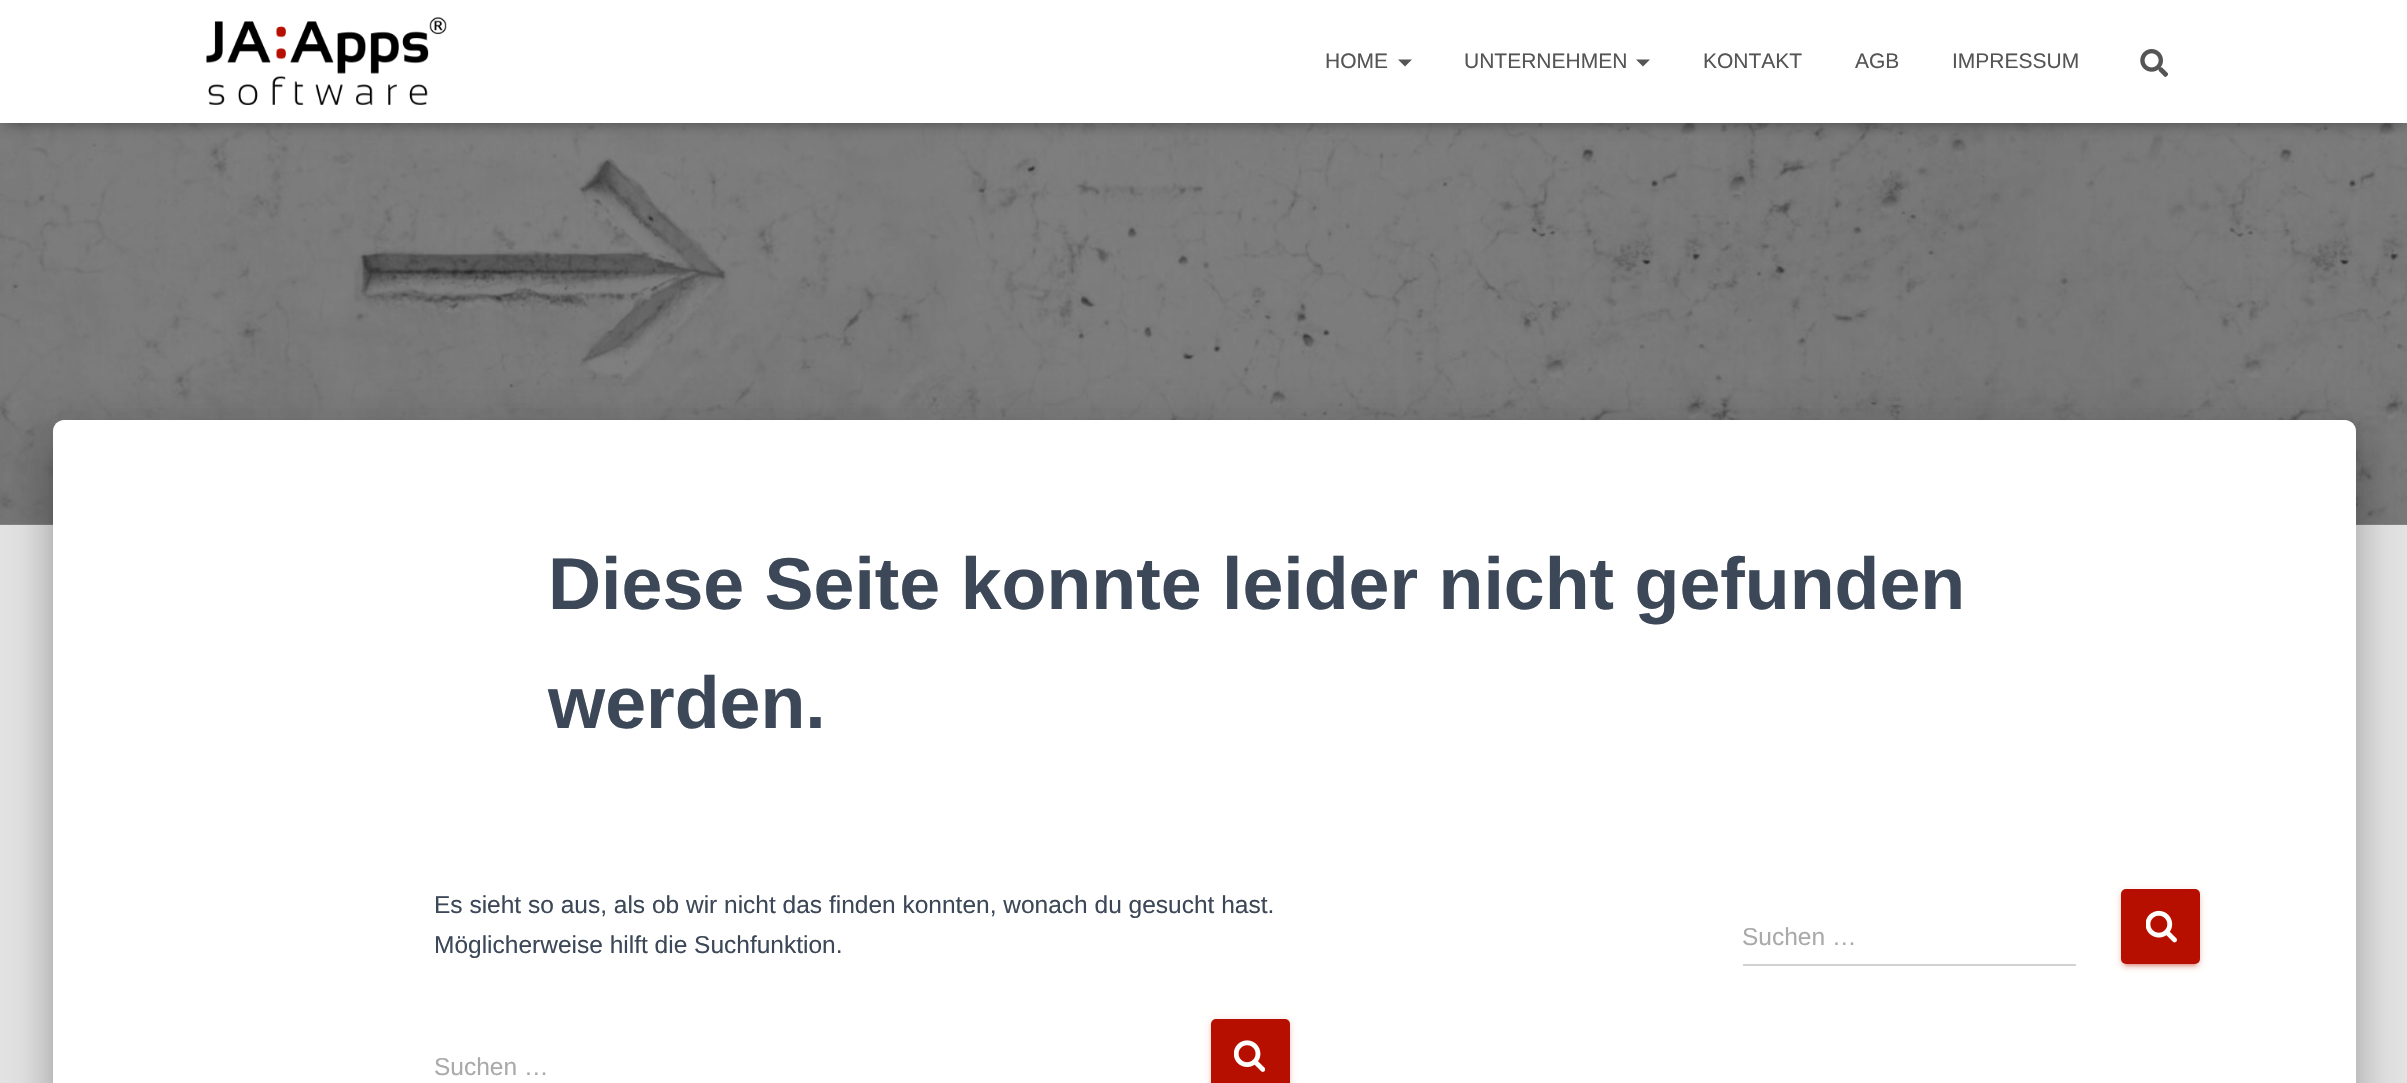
void draw(SkCanvas* c) {
SkPaint p;
p.setAntiAlias(true);
auto F=[&](const char* family, int weight, float size, bool italic = false){SkFontStyle style(weight, SkFontStyle::kNormal_Width,italic ? SkFontStyle::kItalic_Slant : SkFontStyle::kUpright_Slant);SkFont result(fontMgr->matchFamilyStyle(family, style), size);result.setSubpixel(true);return result;};
auto T=[&](const char* s, float x, float y, const SkFont& font){c->drawString(s, x, y, font, p);};
auto R=[&](float x, float y, float w, float h){c->drawRect(SkRect::MakeXYWH(x, y, w, h), p);};
auto Q=[&](float x, float y, float w, float h, float radius){c->drawRoundRect(SkRect::MakeXYWH(x, y, w, h), radius, radius, p);};
auto I=[&](const char* path, float x, float y, float w, float h){auto image = SkImages::DeferredFromEncodedData(SkData::MakeFromFileName(path));c->drawImageRect(image, SkRect::MakeXYWH(x, y, w, h), SkSamplingOptions());};
auto P=[&](const char* data, bool evenOdd = false){SkPath result = *SkParsePath::FromSVGString(data);if (evenOdd) result.setFillType(SkPathFillType::kEvenOdd);return result;};
c->clear(0xffe5e5e5);
I("3.png",0,123,2407,402);
p.setColor(0x1a000000);
p.setMaskFilter(SkMaskFilter::MakeBlur(kNormal_SkBlurStyle, 4.5));
c->drawRect(SkRect::MakeXYWH(4,11,2401,115),p);
p.setMaskFilter(nullptr);
p.setColor(0x1f000000);
p.setMaskFilter(SkMaskFilter::MakeBlur(kNormal_SkBlurStyle, 9));
c->drawRect(SkRect::MakeXYWH(0,2,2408,122),p);
p.setMaskFilter(nullptr);
p.setColor(0x6b000000);
p.setMaskFilter(SkMaskFilter::MakeBlur(kNormal_SkBlurStyle, 9));
c->drawRect(SkRect::MakeXYWH(11,12,2387,102),p);
p.setMaskFilter(nullptr);
p.setColor(0xffffffff);
R(0,0,2407,123);
I("1.png",206,17,241,88);
auto f1 = F("Liberation Sans",400,21);
p.setColor(0xff555555);
T("HOME",1325,68,f1);
c->drawPath(P("M1398 59.5h14l-7 7z"),p);
T("UNTERNEHMEN",1464,68,f1);
c->drawPath(P("M1636 59.5h14l-7 7z"),p);
T("KONTAKT",1703,68,f1);
T("AGB",1855,68,f1);
T("IMPRESSUM",1952,68,f1);
I("2.png",2140,49,28,28);
p.setColor(0x33000000);
p.setMaskFilter(SkMaskFilter::MakeBlur(kNormal_SkBlurStyle, 9));
c->drawRoundRect(SkRect::MakeXYWH(61,443,2286,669),2,2,p);
p.setMaskFilter(nullptr);
p.setColor(0x1f000000);
p.setMaskFilter(SkMaskFilter::MakeBlur(kNormal_SkBlurStyle, 26));
c->drawRoundRect(SkRect::MakeXYWH(44,422,2320,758),19,19,p);
p.setMaskFilter(nullptr);
p.setColor(0x24000000);
p.setMaskFilter(SkMaskFilter::MakeBlur(kNormal_SkBlurStyle, 21));
c->drawRoundRect(SkRect::MakeXYWH(49,445,2310,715),14,14,p);
p.setMaskFilter(nullptr);
p.setColor(0xffffffff);
c->drawPath(P("M64 420h2281c6 0 11 5 11 11v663h-2303v-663c0-6 5-11 11-11z"),p);
auto f2 = F("Liberation Sans",700,73.5);
p.setColor(0xff3c4858);
T("Diese Seite konnte leider nicht gefunden",548,609,f2);
T("werden.",548,728,f2);
auto f3 = F("Liberation Sans",400,24.5);
T("Es sieht so aus, als ob wir nicht das finden konnten, wonach du gesucht hast.",434,913,f3);
T("Möglicherweise hilft die Suchfunktion.",434,953,f3);
p.setColor(0xffaaaaaa);
T("Suchen …",434,1075,f3);
p.setColor(0x1fb60f00);
p.setMaskFilter(SkMaskFilter::MakeBlur(kNormal_SkBlurStyle, 4.5));
c->drawRoundRect(SkRect::MakeXYWH(1211,1020,79,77),5,5,p);
p.setMaskFilter(nullptr);
p.setColor(0x24b60f00);
p.setMaskFilter(SkMaskFilter::MakeBlur(kNormal_SkBlurStyle, 2));
c->drawRoundRect(SkRect::MakeXYWH(1211,1022,79,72),5,5,p);
p.setMaskFilter(nullptr);
p.setColor(0xffb60f00);
Q(1211,1019,79,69,5);
I("4.png",1234,1040,31,32);
p.setColor(0xffaaaaaa);
T("Suchen …",1742,945,f3);
p.setColor(0xffd2d2d2);
R(1743,964,333,2);
p.setColor(0x1fb60f00);
p.setMaskFilter(SkMaskFilter::MakeBlur(kNormal_SkBlurStyle, 4.5));
c->drawRoundRect(SkRect::MakeXYWH(2121,891,79,75),5,5,p);
p.setMaskFilter(nullptr);
p.setColor(0x33b60f00);
p.setMaskFilter(SkMaskFilter::MakeBlur(kNormal_SkBlurStyle, 1));
c->drawRoundRect(SkRect::MakeXYWH(2125,898,71,68),2,2,p);
p.setMaskFilter(nullptr);
p.setColor(0x24b60f00);
p.setMaskFilter(SkMaskFilter::MakeBlur(kNormal_SkBlurStyle, 2));
c->drawRoundRect(SkRect::MakeXYWH(2121,893,79,75),5,5,p);
p.setMaskFilter(nullptr);
p.setColor(0xffb60f00);
Q(2121,889,79,75,5);
I("5.png",2146,910,31,33);
}
